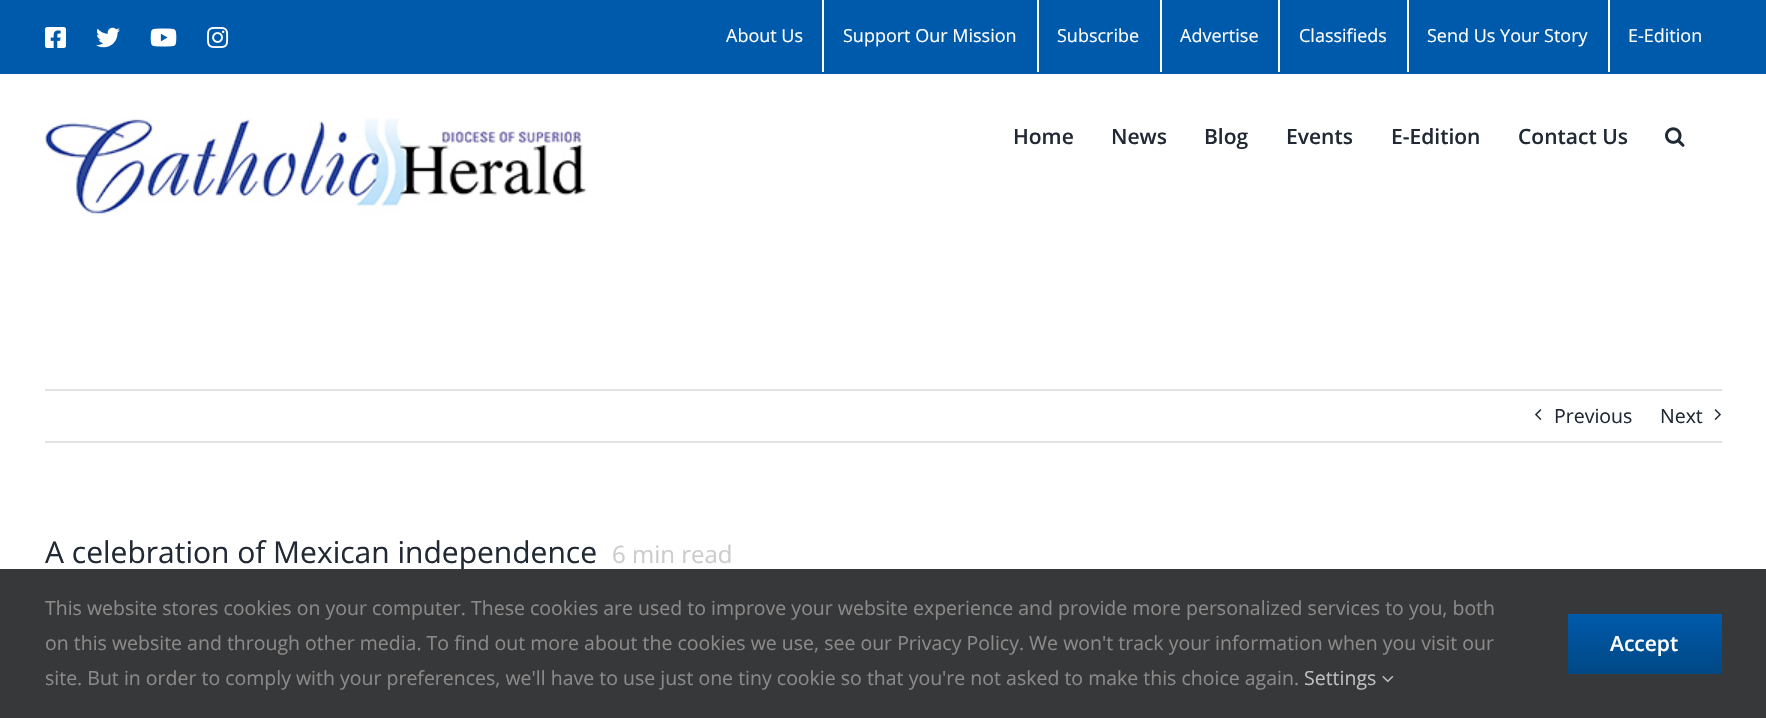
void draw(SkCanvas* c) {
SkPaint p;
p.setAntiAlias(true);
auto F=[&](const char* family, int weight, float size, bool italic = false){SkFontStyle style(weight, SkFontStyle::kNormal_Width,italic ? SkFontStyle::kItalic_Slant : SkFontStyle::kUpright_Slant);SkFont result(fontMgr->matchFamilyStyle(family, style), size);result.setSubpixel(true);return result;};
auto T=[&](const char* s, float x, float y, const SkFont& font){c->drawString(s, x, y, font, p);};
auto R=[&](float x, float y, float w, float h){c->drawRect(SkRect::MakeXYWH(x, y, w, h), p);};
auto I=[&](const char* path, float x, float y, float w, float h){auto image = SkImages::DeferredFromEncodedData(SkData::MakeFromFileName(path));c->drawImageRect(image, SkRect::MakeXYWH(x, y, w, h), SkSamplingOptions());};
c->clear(0xffffffff);
p.setColor(0xff005aab);
R(0,0,1766,74);
I("1.png",45,27,21,21);
I("2.png",96,27,24,21);
I("3.png",150,28,27,19);
I("4.png",207,27,22,21);
auto f1 = F("Open Sans",400,18);
p.setColor(0xffffffff);
T("About Us",726,42,f1);
R(822,0,2,72);
T("Support Our Mission",843,42,f1);
R(1037,0,2,72);
T("Subscribe",1057,42,f1);
R(1160,0,2,72);
T("Advertise",1180,42,f1);
R(1278,0,2,72);
T("Classifieds",1299,42,f1);
R(1407,0,2,72);
T("Send Us Your Story",1427,42,f1);
R(1608,0,2,72);
T("E-Edition",1628,42,f1);
I("5.png",45,118,542,97);
auto f2 = F("Open Sans",600,21);
p.setColor(0xff212934);
T("Home",1013,144,f2);
T("News",1111,144,f2);
T("Blog",1204,144,f2);
T("Events",1286,144,f2);
T("E-Edition",1391,144,f2);
T("Contact Us",1518,144,f2);
I("6.png",1665,127,20,20);
p.setColor(0xffe2e2e2);
R(45,389,1677,2);
R(45,441,1677,2);
I("7.png",1535,409,7,11);
auto f3 = F("Open Sans",400,19.5);
p.setColor(0xff212934);
T("Previous",1554,423,f3);
T("Next",1660,423,f3);
I("8.png",1714,409,7,11);
auto f4 = F("Open Sans",400,30);
T("A celebration of Mexican independence",45,563,f4);
auto f5 = F("Open Sans",400,24);
p.setColor(0xffcccccc);
T("6 min read",612,563,f5);
p.setColor(0xff363839);
R(0,569,1766,149);
p.setColor(0xff8c8989);
T("This website stores cookies on your computer. These cookies are used to improve your website experience and provide more personalized services to you, both",45,615,f3);
T("on this website and through other media. To find out more about the cookies we use, see our Privacy Policy. We won't track your information when you visit our",45,650,f3);
T("site. But in order to comply with your preferences, we'll have to use just one tiny cookie so that you're not asked to make this choice again.",45,685,f3);
p.setColor(0xffbfbfbf);
T("Settings",1304,685,f3);
I("9.png",1382,675,12,8);
{
const SkColor colors[] = {0xff005aab,0xff004884};
const float stops[] = {0,1};
const SkPoint ends[] = {{1645,614}, {1645,674}};
p.setShader(SkGradientShader::MakeLinear(ends, colors, stops, 2, SkTileMode::kClamp));
p.setAlpha(255);
}
R(1568,614,154,60);
p.setShader(nullptr);
p.setColor(0xffffffff);
T("Accept",1610,651,f2);
}
